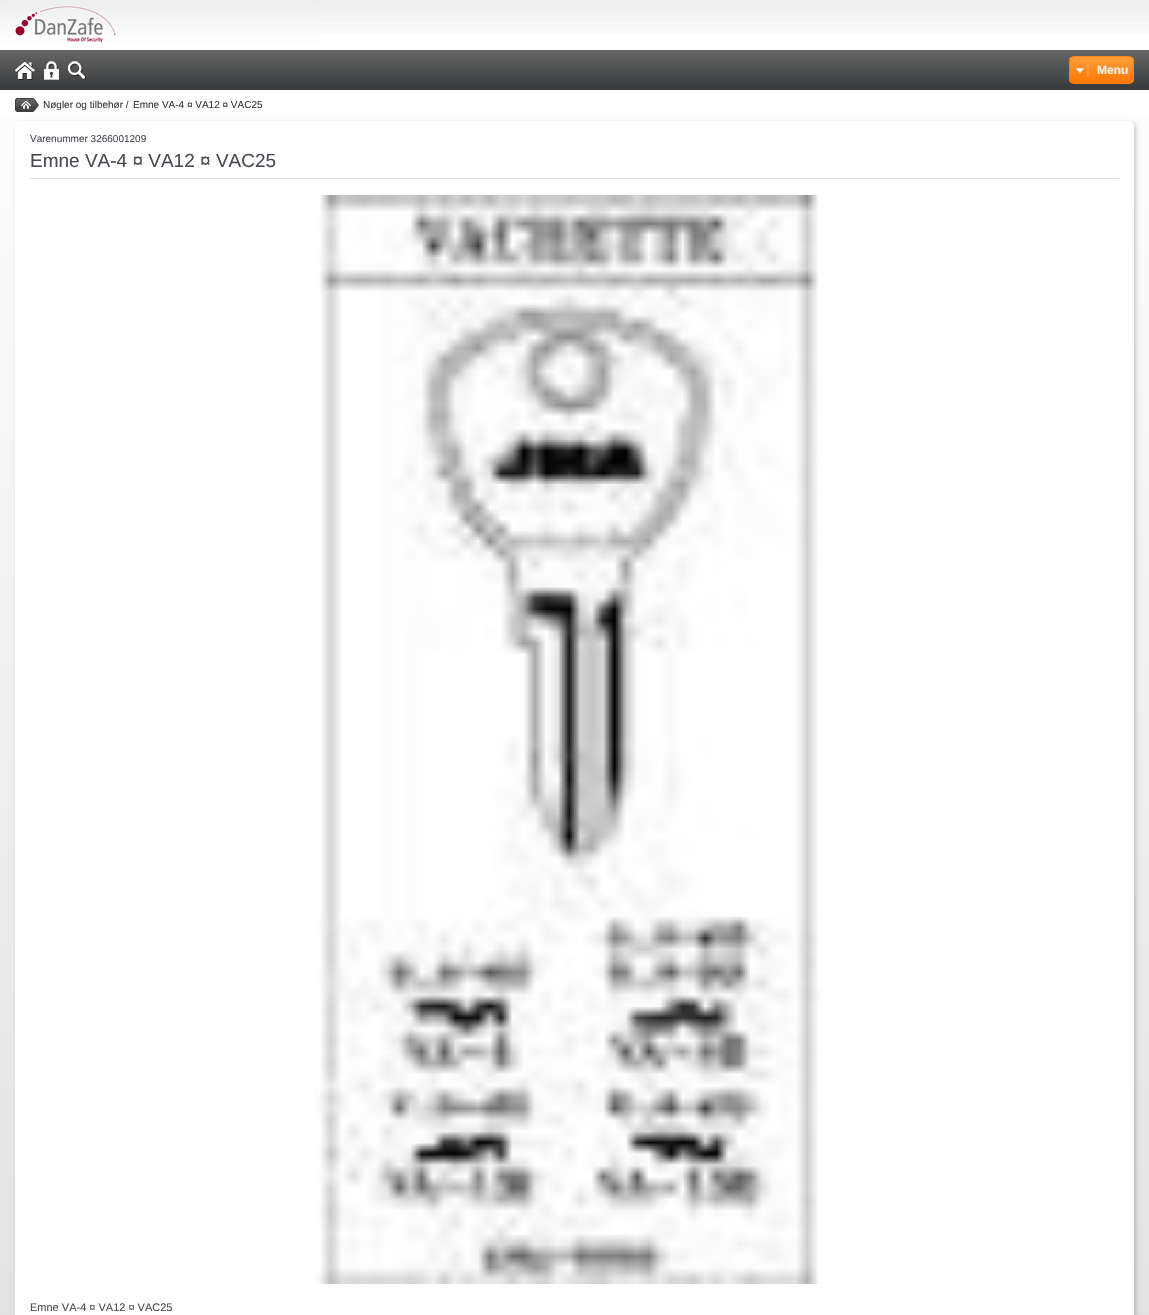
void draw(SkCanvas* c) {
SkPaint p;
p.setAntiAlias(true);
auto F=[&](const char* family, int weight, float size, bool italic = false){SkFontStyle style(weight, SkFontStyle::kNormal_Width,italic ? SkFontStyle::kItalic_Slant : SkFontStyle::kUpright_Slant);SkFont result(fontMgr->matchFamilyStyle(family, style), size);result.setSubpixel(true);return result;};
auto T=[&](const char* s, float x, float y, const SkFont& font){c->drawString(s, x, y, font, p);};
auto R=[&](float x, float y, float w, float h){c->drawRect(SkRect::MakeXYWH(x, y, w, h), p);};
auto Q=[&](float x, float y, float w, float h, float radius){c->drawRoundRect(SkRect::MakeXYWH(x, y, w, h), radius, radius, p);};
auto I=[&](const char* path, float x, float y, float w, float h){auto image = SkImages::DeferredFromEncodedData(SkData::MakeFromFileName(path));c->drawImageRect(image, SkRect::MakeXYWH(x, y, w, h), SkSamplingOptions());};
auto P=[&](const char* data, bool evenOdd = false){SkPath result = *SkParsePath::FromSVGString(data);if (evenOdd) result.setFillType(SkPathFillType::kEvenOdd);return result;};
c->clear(0xffffffff);
{
const SkColor colors[] = {0xffffffff,0xffe0e0e0};
const float stops[] = {0,1};
const SkPoint ends[] = {{574,0}, {575,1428}};
p.setShader(SkGradientShader::MakeLinear(ends, colors, stops, 2, SkTileMode::kClamp));
p.setAlpha(255);
}
R(0,115,1149,1200);
I("1.png",0,0,1149,33);
I("2.png",0,5,320,38);
{
const SkColor colors[] = {0xff666666,0xff37393b};
const float stops[] = {0,1};
const SkPoint ends[] = {{575,50}, {575,90}};
p.setShader(SkGradientShader::MakeLinear(ends, colors, stops, 2, SkTileMode::kClamp));
p.setAlpha(255);
}
R(0,50,1149,40);
I("3.png",15,62,20,18);
I("4.png",44,61,15,19);
I("5.png",68,61,18,19);
c->save();
c->clipPath(P("M1074 56h55c3 0 5 2 5 5v18c0 3-2 5-5 5h-55c-3 0-5-2-5-5v-18c0-3 2-5 5-5z"),true);
{
const SkColor colors[] = {0xffff9e3a,0xffff7603};
const float stops[] = {0,1};
const SkPoint ends[] = {{1102,57}, {1102,83}};
p.setShader(SkGradientShader::MakeLinear(ends, colors, stops, 2, SkTileMode::kClamp));
p.setAlpha(255);
}
R(1069,57,65,26);
c->restore();
p.setStroke(true);
p.setStrokeWidth(1);
p.setShader(nullptr);
p.setColor(0xffff8213);
c->drawRoundRect(SkRect::MakeXYWH(1069.5,56.5,64,27),4.5,4.5,p);
I("6.png",1076,63,13,14);
auto f1 = F("Liberation Sans",700,12);
p.setStroke(false);
p.setColor(0xfff1f2f2);
T("Menu",1097,74,f1);
I("7.png",15,98,24,14);
auto f2 = F("Liberation Sans",400,10);
p.setColor(0xff393b3d);
T("Nøgler og tilbehør /",43,108,f2);
T("Emne VA-4 ¤ VA12 ¤ VAC25",133,108,f2);
p.setColor(0x33000000);
p.setMaskFilter(SkMaskFilter::MakeBlur(kNormal_SkBlurStyle, 2));
c->drawRoundRect(SkRect::MakeXYWH(17,123,1119,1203),5,5,p);
p.setMaskFilter(nullptr);
p.setColor(0xffffffff);
Q(15,121,1119,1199,5);
p.setColor(0xff474a51);
T("Varenummer 3266001209",30,142,f2);
p.setColor(0xffe2e2e2);
R(30,178,1089,1);
auto f3 = F("Liberation Sans",400,19);
p.setColor(0xff474a51);
T("Emne VA-4 ¤ VA12 ¤ VAC25",30,167,f3);
I("8.png",315,195,506,1089);
auto f4 = F("Liberation Sans",400,11);
p.setColor(0xff4d4a49);
T("Emne VA-4 ¤ VA12 ¤ VAC25",30,1311,f4);
}
